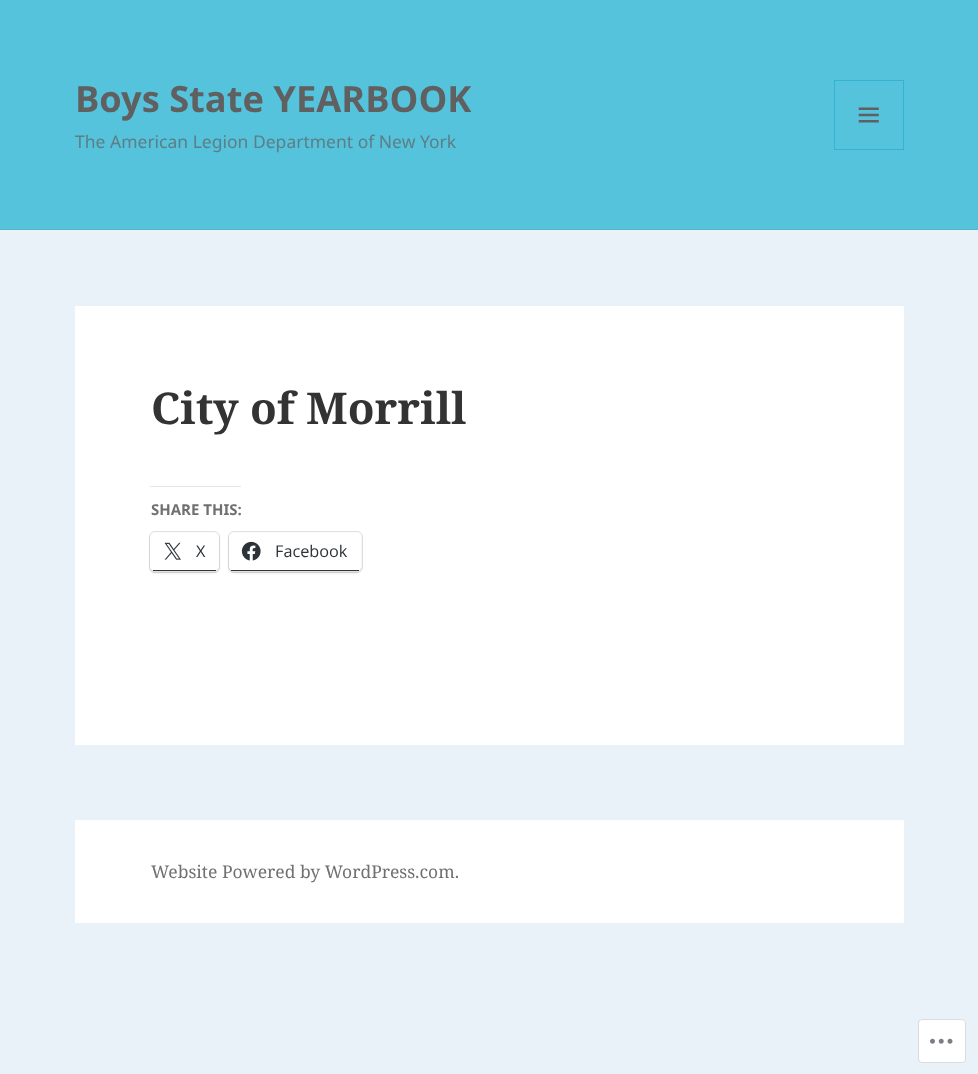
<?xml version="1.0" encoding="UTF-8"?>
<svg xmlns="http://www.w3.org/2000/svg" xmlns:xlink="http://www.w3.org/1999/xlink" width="978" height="1074">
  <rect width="100%" height="100%" fill="#e9f2f9" />
  <rect width="978" height="229" fill="#55c3dc" />
  <rect y="229" width="978" height="1" fill="#52b5cb" />
  <rect x="834.5" y="80.5" width="69" height="69" fill="none" stroke="#33b3d0" />
  <image x="858" y="107" width="21" height="16" xlink:href="image1.png" />
  <rect x="75" y="306" width="829" height="439" fill="#ffffff" />
  <rect x="150" y="486" width="91" height="1" fill="#e7e7e8" />
  <rect x="149.5" y="531.5" width="70" height="41" rx="5.5" fill="none" stroke="#e0e0e0" />
  <rect x="150" y="534" width="69" height="39" rx="5" fill="#000000" fill-opacity="0.12" filter="blur(1px)" />
  <rect x="150" y="533" width="69" height="38" rx="5" fill="#ffffff" />
  <rect x="153" y="570" width="63" height="1" fill="#333333" />
  <image x="164" y="542" width="17" height="18" xlink:href="image2.png" />
  <rect x="228.5" y="531.5" width="134" height="41" rx="5.5" fill="none" stroke="#e0e0e0" />
  <rect x="229" y="534" width="132" height="39" rx="5" fill="#000000" fill-opacity="0.12" filter="blur(1px)" />
  <rect x="229" y="533" width="132" height="38" rx="5" fill="#ffffff" />
  <rect x="231" y="570" width="128" height="1" fill="#333333" />
  <image x="241" y="541" width="20" height="20" xlink:href="image3.png" />
  <rect x="75" y="820" width="829" height="103" fill="#ffffff" />
  <rect x="918.5" y="1019.5" width="47" height="43" rx="3.5" fill="#ffffff" stroke="#dcdcdf" />
  <image x="930" y="1038" width="23" height="6" xlink:href="image4.png" />
  <text x="75" y="112" style="font-family: Noto Sans; font-size: 36.25px; font-weight: bold; fill: #606060">Boys State YEARBOOK</text>
  <text x="75" y="148" style="font-family: Noto Sans; font-size: 17.5px; fill: #5d7e85">The American Legion Department of New York</text>
  <text x="151" y="424" style="font-family: Noto Serif; font-size: 43.75px; font-weight: bold; fill: #333333">City of Morrill</text>
  <text x="151" y="515" style="font-family: Noto Sans; font-size: 15px; font-weight: bold; fill: #707070">SHARE THIS:</text>
  <text x="196" y="557" style="font-family: Open Sans; font-size: 16.25px; fill: #2c3338">X</text>
  <text x="275" y="557" style="font-family: Open Sans; font-size: 16.25px; fill: #2c3338">Facebook</text>
  <text x="151" y="878" style="font-family: Noto Serif; font-size: 17.5px; fill: #707070">Website Powered by WordPress.com.</text>
</svg>
